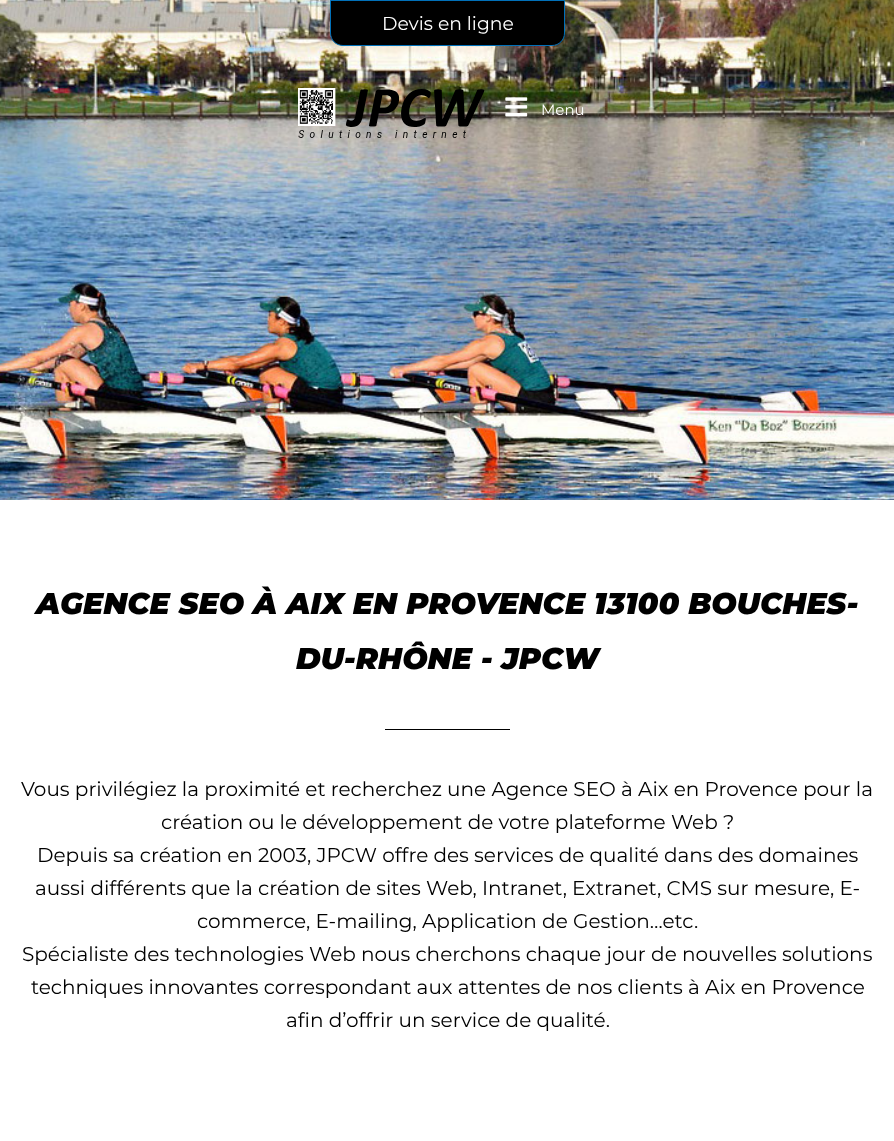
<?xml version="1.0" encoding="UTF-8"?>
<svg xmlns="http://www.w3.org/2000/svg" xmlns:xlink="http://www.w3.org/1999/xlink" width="894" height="1141">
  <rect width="100%" height="100%" fill="#ffffff" />
  <image x="0" y="0" width="894" height="500" xlink:href="image3.png" />
  <path d="M 330.5 0.5 h 234 v 32.5 c 0 7 -5.5 12.5 -12.5 12.5 h -209 c -7 0 -12.5 -5.5 -12.5 -12.5 z" fill="#000000" stroke="#0170b9" />
  <image x="298" y="88" width="187" height="50" xlink:href="image1.png" />
  <image x="505" y="97" width="23" height="20" xlink:href="image2.png" />
  <rect x="385" y="729" width="125" height="1" fill="#000000" />
  <text x="382" y="30" style="font-family: Montserrat; font-size: 18.75px; fill: #ffffff">Devis en ligne</text>
  <text x="541" y="115" style="font-family: Montserrat; font-size: 15px; fill: #ffffff">Menu</text>
  <text x="36" y="614" style="font-family: Montserrat; font-size: 30px; font-weight: 900; font-style: italic; fill: #000000">AGENCE SEO À AIX EN PROVENCE 13100 BOUCHES-</text>
  <text x="296" y="669" style="font-family: Montserrat; font-size: 30px; font-weight: 900; font-style: italic; fill: #000000">DU-RHÔNE - JPCW</text>
  <text x="21" y="796" style="font-family: Montserrat; font-size: 20px; fill: #000000">Vous privilégiez la proximité et recherchez une Agence SEO à Aix en Provence pour la</text>
  <text x="161" y="829" style="font-family: Montserrat; font-size: 20px; fill: #000000">création ou le développement de votre plateforme Web ?</text>
  <text x="37" y="862" style="font-family: Montserrat; font-size: 20px; fill: #000000">Depuis sa création en 2003, JPCW offre des services de qualité dans des domaines</text>
  <text x="35" y="895" style="font-family: Montserrat; font-size: 20px; fill: #000000">aussi différents que la création de sites Web, Intranet, Extranet, CMS sur mesure, E-</text>
  <text x="197" y="928" style="font-family: Montserrat; font-size: 20px; fill: #000000">commerce, E-mailing, Application de Gestion…etc.</text>
  <text x="22" y="961" style="font-family: Montserrat; font-size: 20px; fill: #000000">Spécialiste des technologies Web nous cherchons chaque jour de nouvelles solutions</text>
  <text x="31" y="994" style="font-family: Montserrat; font-size: 20px; fill: #000000">techniques innovantes correspondant aux attentes de nos clients à Aix en Provence</text>
  <text x="286" y="1027" style="font-family: Montserrat; font-size: 20px; fill: #000000">afin d’offrir un service de qualité.</text>
</svg>
